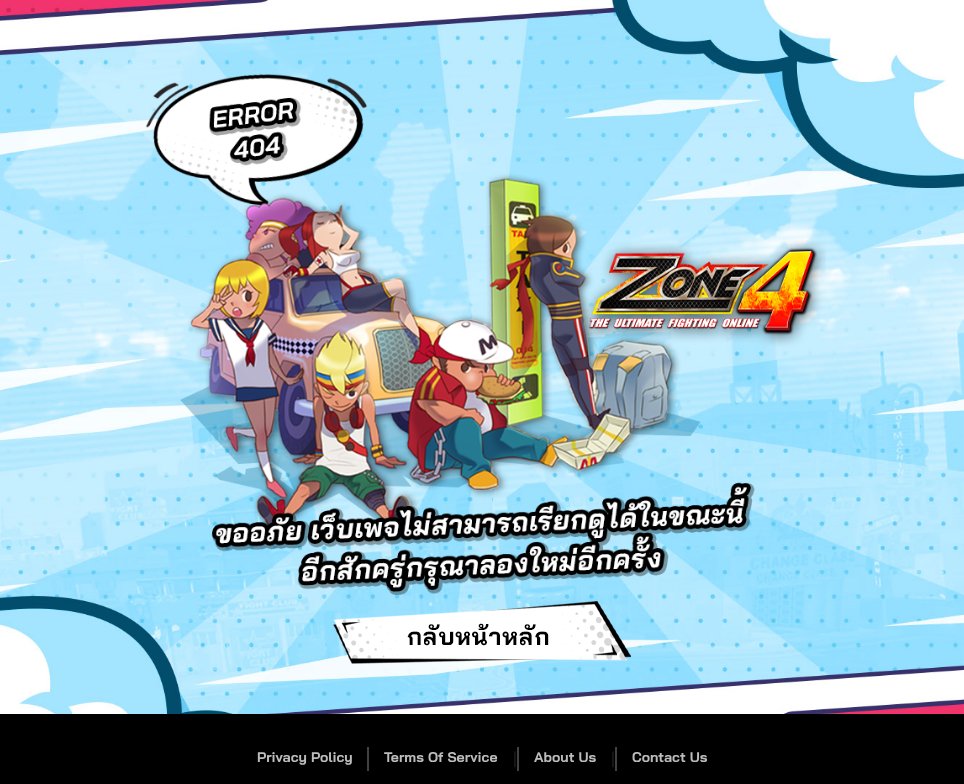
<?xml version="1.0" encoding="UTF-8"?>
<svg xmlns="http://www.w3.org/2000/svg" xmlns:xlink="http://www.w3.org/1999/xlink" width="964" height="784">
  <rect width="100%" height="100%" fill="#ffffff" />
  <image x="0" y="0" width="964" height="714" xlink:href="image1.png" />
  <image x="145" y="74" width="681" height="521" xlink:href="image2.png" />
  <image x="333" y="601" width="298" height="63" xlink:href="image3.png" />
  <rect y="714" width="964" height="70" fill="#000000" />
  <rect x="367" y="747" width="2" height="24" fill="#414141" />
  <rect x="517" y="747" width="2" height="24" fill="#414141" />
  <rect x="615" y="747" width="2" height="24" fill="#414141" />
  <text x="257" y="762" style="font-family: Bai Jamjuree; font-size: 14px; font-weight: bold; fill: #bcbcbc">Privacy Policy</text>
  <text x="384" y="762" style="font-family: Bai Jamjuree; font-size: 14px; font-weight: bold; fill: #bcbcbc">Terms Of Service</text>
  <text x="513" y="765" style="font-family: Bai Jamjuree; font-size: 16px; fill: #212529">|</text>
  <text x="534" y="762" style="font-family: Bai Jamjuree; font-size: 14px; font-weight: bold; fill: #bcbcbc">About Us</text>
  <text x="611" y="765" style="font-family: Bai Jamjuree; font-size: 16px; fill: #212529">|</text>
  <text x="632" y="762" style="font-family: Bai Jamjuree; font-size: 14px; font-weight: bold; fill: #bcbcbc">Contact Us</text>
</svg>
